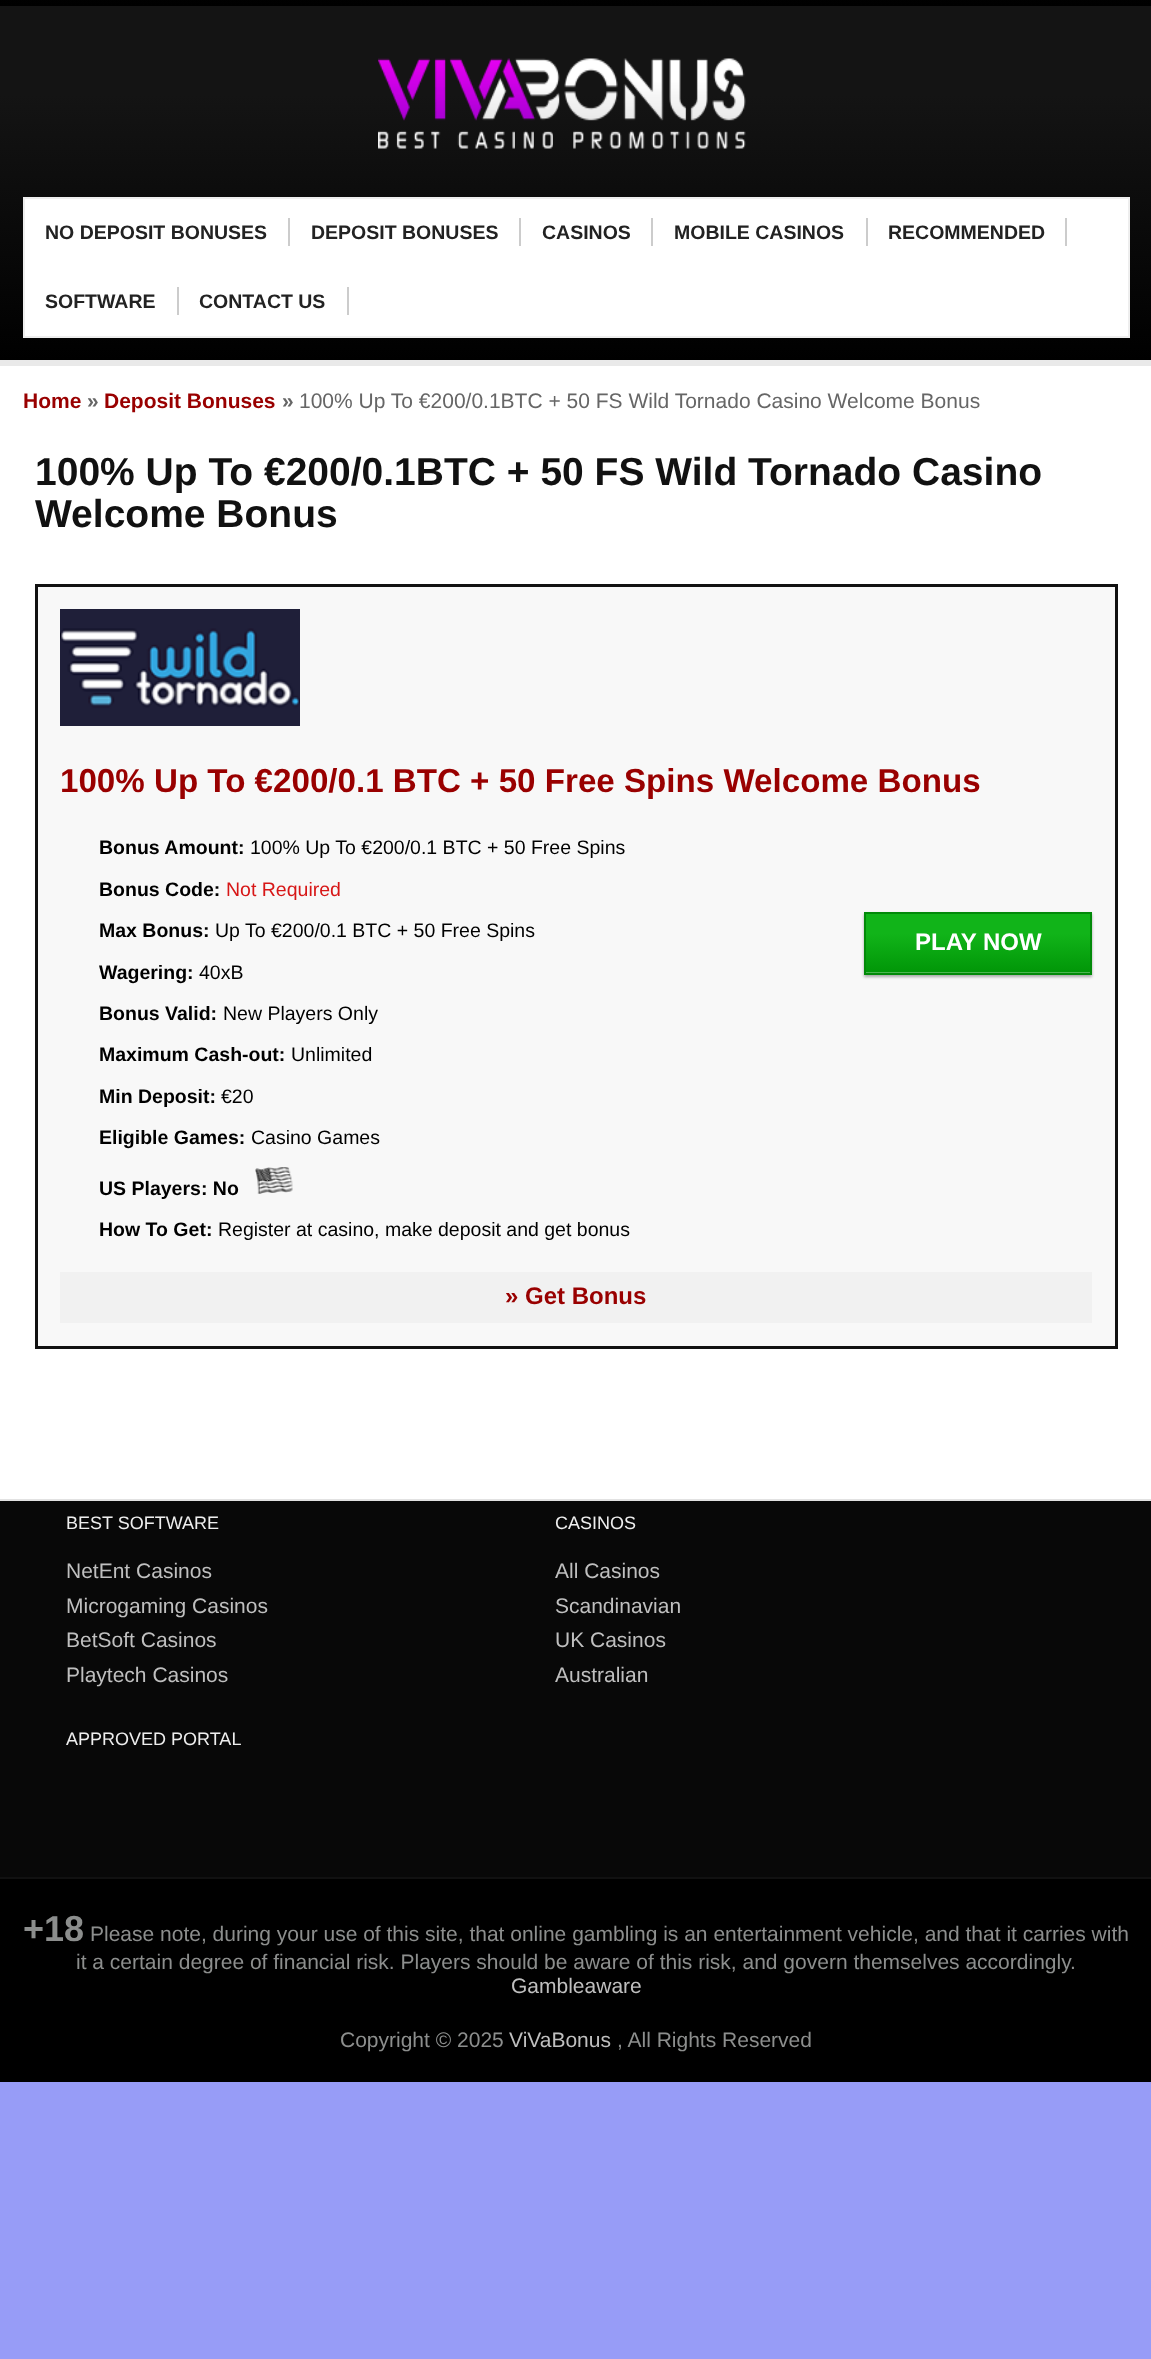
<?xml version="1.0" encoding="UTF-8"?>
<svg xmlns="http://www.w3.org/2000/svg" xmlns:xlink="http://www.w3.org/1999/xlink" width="1151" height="2359">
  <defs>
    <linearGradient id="g1" gradientUnits="userSpaceOnUse" x1="576" y1="-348" x2="576" y2="6"><stop offset="0.25" stop-color="#141414" /><stop offset="1" stop-color="#000000" /></linearGradient>
    <linearGradient id="g2" gradientUnits="userSpaceOnUse" x1="576" y1="6" x2="576" y2="360"><stop offset="0.25" stop-color="#141414" /><stop offset="1" stop-color="#000000" /></linearGradient>
    <linearGradient id="g3" gradientUnits="userSpaceOnUse" x1="978" y1="914" x2="978" y2="974"><stop offset="0.33" stop-color="#11b419" /><stop offset="1" stop-color="#009507" /></linearGradient>
  </defs>
  <rect width="100%" height="100%" fill="#979cf7" />
  <rect width="1151" height="6" fill="url(#g1)" />
  <rect y="6" width="1151" height="354" fill="url(#g2)" />
  <rect y="360" width="1151" height="6" fill="#e9e9e9" />
  <image x="378" y="58" width="368" height="91" xlink:href="image1.png" />
  <rect x="24" y="198" width="1105" height="139" fill="#ffffff" stroke="#eeeeee" stroke-width="2" />
  <rect x="288" y="218" width="2" height="28" fill="#cccccc" />
  <rect x="519" y="218" width="2" height="28" fill="#cccccc" />
  <rect x="651" y="218" width="2" height="28" fill="#cccccc" />
  <rect x="866" y="218" width="2" height="28" fill="#cccccc" />
  <rect x="1065" y="218" width="2" height="28" fill="#cccccc" />
  <rect x="177" y="287" width="2" height="28" fill="#cccccc" />
  <rect x="347" y="287" width="2" height="28" fill="#cccccc" />
  <rect y="366" width="1151" height="1133" fill="#ffffff" />
  <rect x="36.5" y="585.5" width="1080" height="762" fill="#f8f8f8" stroke="#111111" stroke-width="3" />
  <image x="60" y="609" width="240" height="117" xlink:href="image2.png" />
  <image x="255" y="1167" width="38" height="27" xlink:href="image3.png" />
  <rect x="864" y="914" width="228" height="63" fill="#000000" fill-opacity="0.33" filter="blur(1.5px)" />
  <rect x="866" y="914" width="224" height="58" fill="url(#g3)" />
  <rect x="866" y="972" width="225" height="1" fill="#4db552" />
  <rect x="865" y="913" width="226" height="61" fill="none" stroke="#028a09" stroke-width="2" />
  <rect x="60" y="1272" width="1032" height="51" fill="#f1f1f1" />
  <rect y="1501" width="1151" height="376" fill="#080808" />
  <rect y="1499" width="1151" height="2" fill="#e2e2e2" />
  <rect y="1879" width="1151" height="203" fill="#000000" />
  <rect y="1877" width="1151" height="2" fill="#111111" />
  <text x="45" y="239" style="font-family: Liberation Sans; font-size: 19.5px; font-weight: bold; fill: #222222">NO DEPOSIT BONUSES</text>
  <text x="311" y="239" style="font-family: Liberation Sans; font-size: 19.5px; font-weight: bold; fill: #222222">DEPOSIT BONUSES</text>
  <text x="542" y="239" style="font-family: Liberation Sans; font-size: 19.5px; font-weight: bold; fill: #222222">CASINOS</text>
  <text x="674" y="239" style="font-family: Liberation Sans; font-size: 19.5px; font-weight: bold; fill: #222222">MOBILE CASINOS</text>
  <text x="888" y="239" style="font-family: Liberation Sans; font-size: 19.5px; font-weight: bold; fill: #222222">RECOMMENDED</text>
  <text x="45" y="308" style="font-family: Liberation Sans; font-size: 19.5px; font-weight: bold; fill: #222222">SOFTWARE</text>
  <text x="199" y="308" style="font-family: Liberation Sans; font-size: 19.5px; font-weight: bold; fill: #222222">CONTACT US</text>
  <text x="23" y="408" style="font-family: Liberation Sans; font-size: 21px; font-weight: bold; fill: #990000">Home</text>
  <text x="87" y="408" style="font-family: Liberation Sans; font-size: 21px; font-weight: bold; fill: #666666">»</text>
  <text x="104" y="408" style="font-family: Liberation Sans; font-size: 21px; font-weight: bold; fill: #990000">Deposit Bonuses</text>
  <text x="282" y="408" style="font-family: Liberation Sans; font-size: 21px; font-weight: bold; fill: #666666">»</text>
  <text x="299" y="408" style="font-family: Liberation Sans; font-size: 21px; fill: #666666">100% Up To €200/0.1BTC + 50 FS Wild Tornado Casino Welcome Bonus</text>
  <text x="35" y="485" style="font-family: Liberation Sans; font-size: 39px; font-weight: bold; fill: #111111">100% Up To €200/0.1BTC + 50 FS Wild Tornado Casino</text>
  <text x="35" y="527" style="font-family: Liberation Sans; font-size: 39px; font-weight: bold; fill: #111111">Welcome Bonus</text>
  <text x="60" y="792" style="font-family: Liberation Sans; font-size: 33.15px; font-weight: bold; fill: #990000">100% Up To €200/0.1 BTC + 50 Free Spins Welcome Bonus</text>
  <text x="99" y="854" style="font-family: Liberation Sans; font-size: 19.5px; font-weight: bold; fill: #000000">Bonus Amount:</text>
  <text x="250" y="854" style="font-family: Liberation Sans; font-size: 19.5px; fill: #000000">100% Up To €200/0.1 BTC + 50 Free Spins</text>
  <text x="99" y="896" style="font-family: Liberation Sans; font-size: 19.5px; font-weight: bold; fill: #000000">Bonus Code:</text>
  <text x="226" y="896" style="font-family: Liberation Sans; font-size: 19.5px; fill: #d71717">Not Required</text>
  <text x="99" y="937" style="font-family: Liberation Sans; font-size: 19.5px; font-weight: bold; fill: #000000">Max Bonus:</text>
  <text x="215" y="937" style="font-family: Liberation Sans; font-size: 19.5px; fill: #000000">Up To €200/0.1 BTC + 50 Free Spins</text>
  <text x="99" y="979" style="font-family: Liberation Sans; font-size: 19.5px; font-weight: bold; fill: #000000">Wagering:</text>
  <text x="199" y="979" style="font-family: Liberation Sans; font-size: 19.5px; fill: #000000">40xB</text>
  <text x="99" y="1020" style="font-family: Liberation Sans; font-size: 19.5px; font-weight: bold; fill: #000000">Bonus Valid:</text>
  <text x="223" y="1020" style="font-family: Liberation Sans; font-size: 19.5px; fill: #000000">New Players Only</text>
  <text x="99" y="1061" style="font-family: Liberation Sans; font-size: 19.5px; font-weight: bold; fill: #000000">Maximum Cash-out:</text>
  <text x="291" y="1061" style="font-family: Liberation Sans; font-size: 19.5px; fill: #000000">Unlimited</text>
  <text x="99" y="1103" style="font-family: Liberation Sans; font-size: 19.5px; font-weight: bold; fill: #000000">Min Deposit:</text>
  <text x="221" y="1103" style="font-family: Liberation Sans; font-size: 19.5px; fill: #000000">€20</text>
  <text x="99" y="1144" style="font-family: Liberation Sans; font-size: 19.5px; font-weight: bold; fill: #000000">Eligible Games:</text>
  <text x="251" y="1144" style="font-family: Liberation Sans; font-size: 19.5px; fill: #000000">Casino Games</text>
  <text x="99" y="1195" style="font-family: Liberation Sans; font-size: 19.5px; font-weight: bold; fill: #000000">US Players: No</text>
  <text x="99" y="1236" style="font-family: Liberation Sans; font-size: 19.5px; font-weight: bold; fill: #000000">How To Get:</text>
  <text x="218" y="1236" style="font-family: Liberation Sans; font-size: 19.5px; fill: #000000">Register at casino, make deposit and get bonus</text>
  <text x="915" y="950" style="font-family: Liberation Sans; font-size: 24px; font-weight: bold; fill: #ffffff">PLAY NOW</text>
  <text x="505" y="1304" style="font-family: Liberation Sans; font-size: 24px; font-weight: bold; fill: #990000">» Get Bonus</text>
  <text x="66" y="1529" style="font-family: Liberation Sans; font-size: 18px; fill: #eeeeee">BEST SOFTWARE</text>
  <text x="66" y="1578" style="font-family: Liberation Sans; font-size: 21px; fill: #bfbfbf">NetEnt Casinos</text>
  <text x="66" y="1613" style="font-family: Liberation Sans; font-size: 21px; fill: #bfbfbf">Microgaming Casinos</text>
  <text x="66" y="1647" style="font-family: Liberation Sans; font-size: 21px; fill: #bfbfbf">BetSoft Casinos</text>
  <text x="66" y="1682" style="font-family: Liberation Sans; font-size: 21px; fill: #bfbfbf">Playtech Casinos</text>
  <text x="555" y="1529" style="font-family: Liberation Sans; font-size: 18px; fill: #eeeeee">CASINOS</text>
  <text x="555" y="1578" style="font-family: Liberation Sans; font-size: 21px; fill: #bfbfbf">All Casinos</text>
  <text x="555" y="1613" style="font-family: Liberation Sans; font-size: 21px; fill: #bfbfbf">Scandinavian</text>
  <text x="555" y="1647" style="font-family: Liberation Sans; font-size: 21px; fill: #bfbfbf">UK Casinos</text>
  <text x="555" y="1682" style="font-family: Liberation Sans; font-size: 21px; fill: #bfbfbf">Australian</text>
  <text x="66" y="1745" style="font-family: Liberation Sans; font-size: 18px; fill: #eeeeee">APPROVED PORTAL</text>
  <text x="23" y="1941" style="font-family: Liberation Sans; font-size: 36px; font-weight: bold; fill: #8c8e8d">+18</text>
  <text x="90" y="1941" style="font-family: Liberation Sans; font-size: 21px; fill: #8c8e8d">Please note, during your use of this site, that online gambling is an entertainment vehicle, and that it carries with</text>
  <text x="76" y="1969" style="font-family: Liberation Sans; font-size: 21px; fill: #8c8e8d">it a certain degree of financial risk. Players should be aware of this risk, and govern themselves accordingly.</text>
  <text x="511" y="1993" style="font-family: Liberation Sans; font-size: 21px; fill: #bfbfbf">Gambleaware</text>
  <text x="340" y="2047" style="font-family: Liberation Sans; font-size: 21px; fill: #8c8e8d">Copyright © 2025</text>
  <text x="509" y="2047" style="font-family: Liberation Sans; font-size: 21px; fill: #bfbfbf">ViVaBonus</text>
  <text x="617" y="2047" style="font-family: Liberation Sans; font-size: 21px; fill: #8c8e8d">, All Rights Reserved</text>
</svg>
